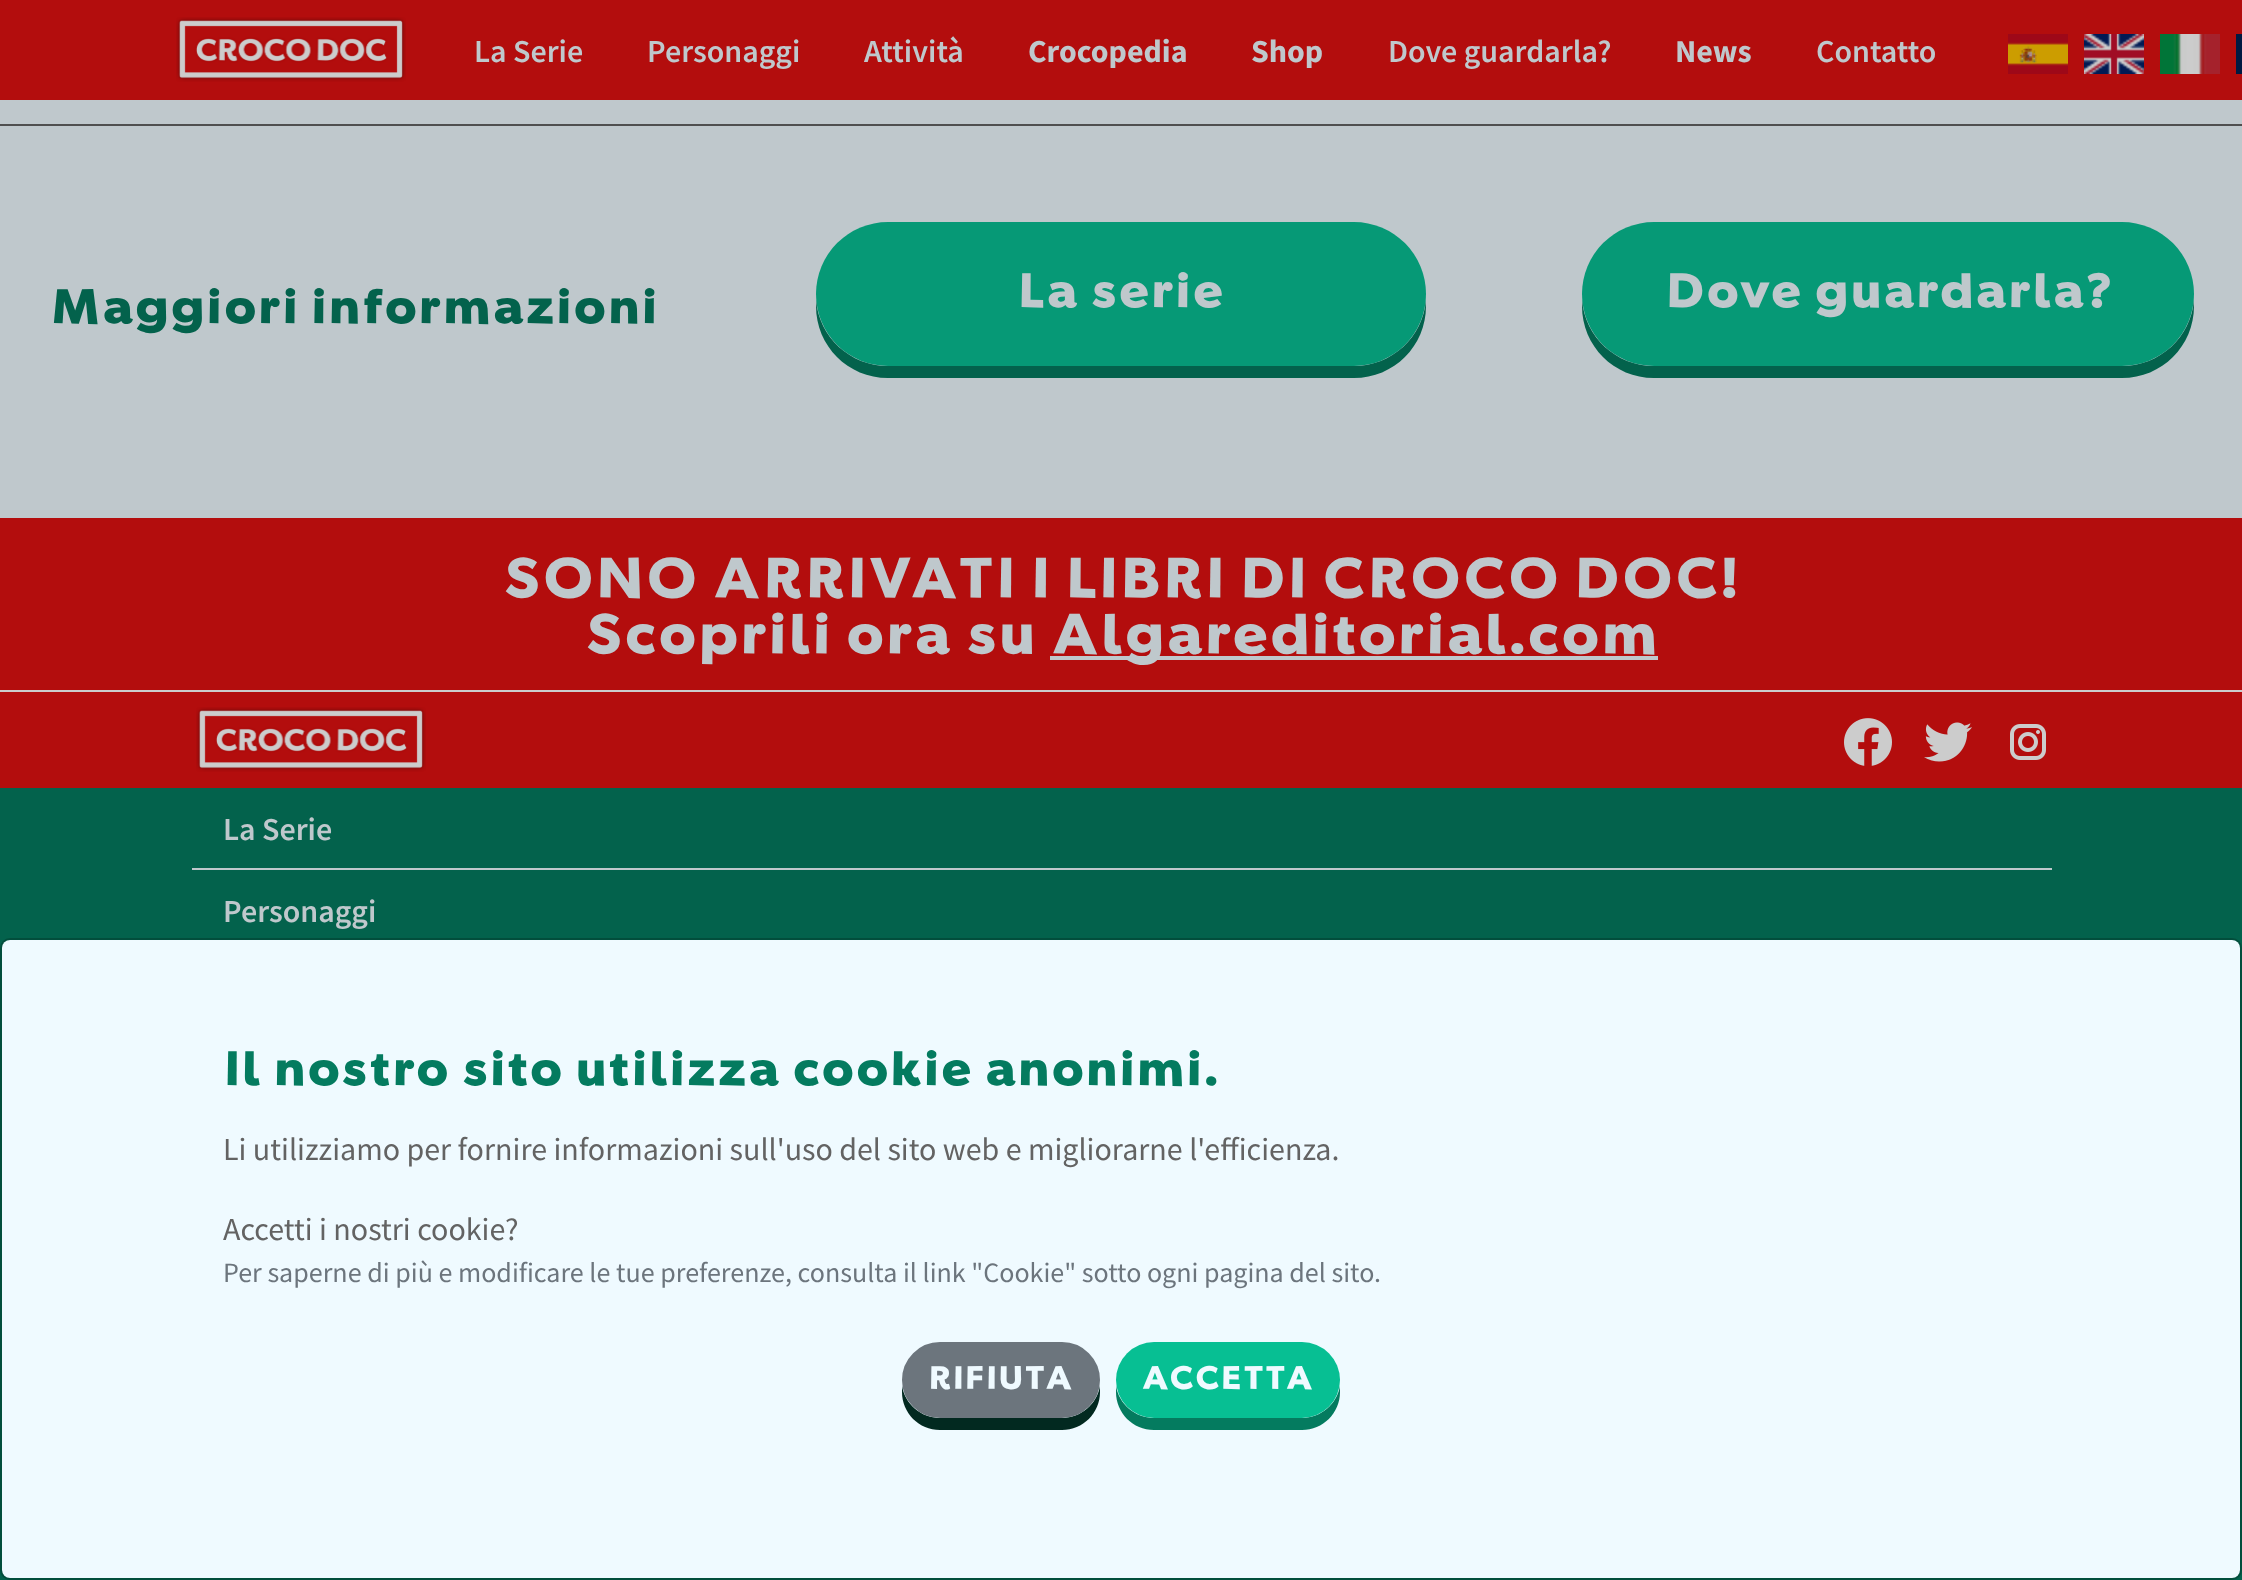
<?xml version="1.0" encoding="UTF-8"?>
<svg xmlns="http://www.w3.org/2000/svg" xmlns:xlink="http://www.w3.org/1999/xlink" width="2242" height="1580">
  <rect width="100%" height="100%" fill="#bfc8cc" />
  <rect width="2242" height="100" fill="#b30d0d" />
  <image x="176" y="17" width="230" height="65" xlink:href="image1.png" />
  <image x="2008" y="34" width="60" height="40" xlink:href="image2.png" />
  <image x="2084" y="34" width="60" height="40" xlink:href="image3.png" />
  <image x="2160" y="34" width="60" height="40" xlink:href="image4.png" />
  <rect x="2236" y="34" width="6" height="40" fill="#001a42" />
  <rect y="124" width="2242" height="2" fill="#4f4f4f" />
  <path d="M 816 300 v 6 c 0 40 32 72 72 72 h 466 c 40 0 72 -32 72 -72 v -6 c -3 37 -34 66 -72 66 h -466 c -38 0 -69 -29 -72 -66 z" fill="#03624c" />
  <rect x="816" y="222" width="610" height="144" rx="72" fill="#069976" />
  <path d="M 1582 300 v 6 c 0 40 32 72 72 72 h 468 c 40 0 72 -32 72 -72 v -6 c -3 37 -34 66 -72 66 h -468 c -38 0 -69 -29 -72 -66 z" fill="#03624c" />
  <rect x="1582" y="222" width="612" height="144" rx="72" fill="#069976" />
  <rect y="788" width="2242" height="792" fill="#03624c" />
  <rect y="690" width="2242" height="2" fill="#cccccc" />
  <rect y="518" width="2242" height="172" fill="#b30d0d" />
  <rect x="1050" y="656" width="608" height="4" fill="#bfc8cc" />
  <rect y="692" width="2242" height="96" fill="#b30d0d" />
  <image x="196" y="707" width="230" height="65" xlink:href="image5.png" />
  <image x="1844" y="718" width="48" height="48" xlink:href="image6.png" />
  <image x="1924" y="722" width="48" height="40" xlink:href="image7.png" />
  <image x="2010" y="724" width="36" height="36" xlink:href="image8.png" />
  <rect x="192" y="868" width="1860" height="2" fill="#bfc8cc" />
  <rect x="2" y="940" width="2238" height="638" rx="8" fill="#effaff" />
  <rect x="1" y="939" width="2240" height="640" rx="9" fill="none" stroke="#000000" stroke-opacity="0.2" stroke-width="2" />
  <path d="M 902 1386 v 6 c 0 21 17 38 38 38 h 122 c 21 0 38 -17 38 -38 v -6 c -3 18 -19 32 -38 32 h -122 c -19 0 -35 -14 -38 -32 z" fill="#022920" />
  <rect x="903" y="1343" width="196" height="74" rx="37" fill="#6c757d" stroke="#6c757d" stroke-width="2" />
  <path d="M 1116 1386 v 6 c 0 21 17 38 38 38 h 148 c 21 0 38 -17 38 -38 v -6 c -3 18 -19 32 -38 32 h -148 c -19 0 -35 -14 -38 -32 z" fill="#047b5f" />
  <rect x="1116" y="1342" width="224" height="76" rx="38" fill="#07bf93" />
  <text x="474" y="62" style="font-family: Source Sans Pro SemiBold; font-size: 32px; font-weight: 600; fill: #bfc8cc">La Serie</text>
  <text x="647" y="62" style="font-family: Source Sans Pro SemiBold; font-size: 32px; font-weight: 600; fill: #bfc8cc">Personaggi</text>
  <text x="864" y="62" style="font-family: Source Sans Pro SemiBold; font-size: 32px; font-weight: 600; fill: #bfc8cc">Attività</text>
  <text x="1028" y="62" style="font-family: Source Sans Pro; font-size: 32px; font-weight: bold; fill: #bfc8cc">Crocopedia</text>
  <text x="1251" y="62" style="font-family: Source Sans Pro; font-size: 32px; font-weight: bold; fill: #bfc8cc">Shop</text>
  <text x="1388" y="62" style="font-family: Source Sans Pro SemiBold; font-size: 32px; font-weight: 600; fill: #bfc8cc">Dove guardarla?</text>
  <text x="1675" y="62" style="font-family: Source Sans Pro; font-size: 32px; font-weight: bold; fill: #bfc8cc">News</text>
  <text x="1816" y="62" style="font-family: Source Sans Pro SemiBold; font-size: 32px; font-weight: 600; fill: #bfc8cc">Contatto</text>
  <text x="50" y="322" style="font-family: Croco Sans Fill; font-size: 48px; fill: #03624c">Maggiori informazioni</text>
  <text x="1017" y="306" style="font-family: Croco Sans Fill; font-size: 48px; fill: #bfc8cc">La serie</text>
  <text x="1665" y="306" style="font-family: Croco Sans Fill; font-size: 48px; fill: #bfc8cc">Dove guardarla?</text>
  <text x="502" y="596" style="font-family: Croco Sans Fill; font-size: 56px; fill: #bfc8cc">SONO ARRIVATI I LIBRI DI CROCO DOC!</text>
  <text x="584" y="652" style="font-family: Croco Sans Fill; font-size: 56px; fill: #bfc8cc">Scoprili ora su</text>
  <text x="1050" y="652" style="font-family: Croco Sans Fill; font-size: 56px; fill: #bfc8cc">Algareditorial.com</text>
  <text x="223" y="840" style="font-family: Source Sans Pro SemiBold; font-size: 32px; font-weight: 600; fill: #bfc8cc">La Serie</text>
  <text x="223" y="922" style="font-family: Source Sans Pro SemiBold; font-size: 32px; font-weight: 600; fill: #bfc8cc">Personaggi</text>
  <text x="223" y="1084" style="font-family: Croco Sans Fill; font-size: 48px; fill: #047b5f">Il nostro sito utilizza cookie anonimi.</text>
  <text x="223" y="1160" style="font-family: Source Sans Pro; font-size: 32px; fill: #636363">Li utilizziamo per fornire informazioni sull'uso del sito web e migliorarne l'efficienza.</text>
  <text x="223" y="1240" style="font-family: Source Sans Pro; font-size: 32px; fill: #636363">Accetti i nostri cookie?</text>
  <text x="223" y="1282" style="font-family: Source Sans Pro; font-size: 28px; fill: #6c757d">Per saperne di più e modificare le tue preferenze, consulta il link "Cookie" sotto ogni pagina del sito.</text>
  <text x="928" y="1388" style="font-family: Croco Sans Fill; font-size: 32px; fill: #effaff">RIFIUTA</text>
  <text x="1141" y="1388" style="font-family: Croco Sans Fill; font-size: 32px; fill: #effaff">ACCETTA</text>
</svg>
